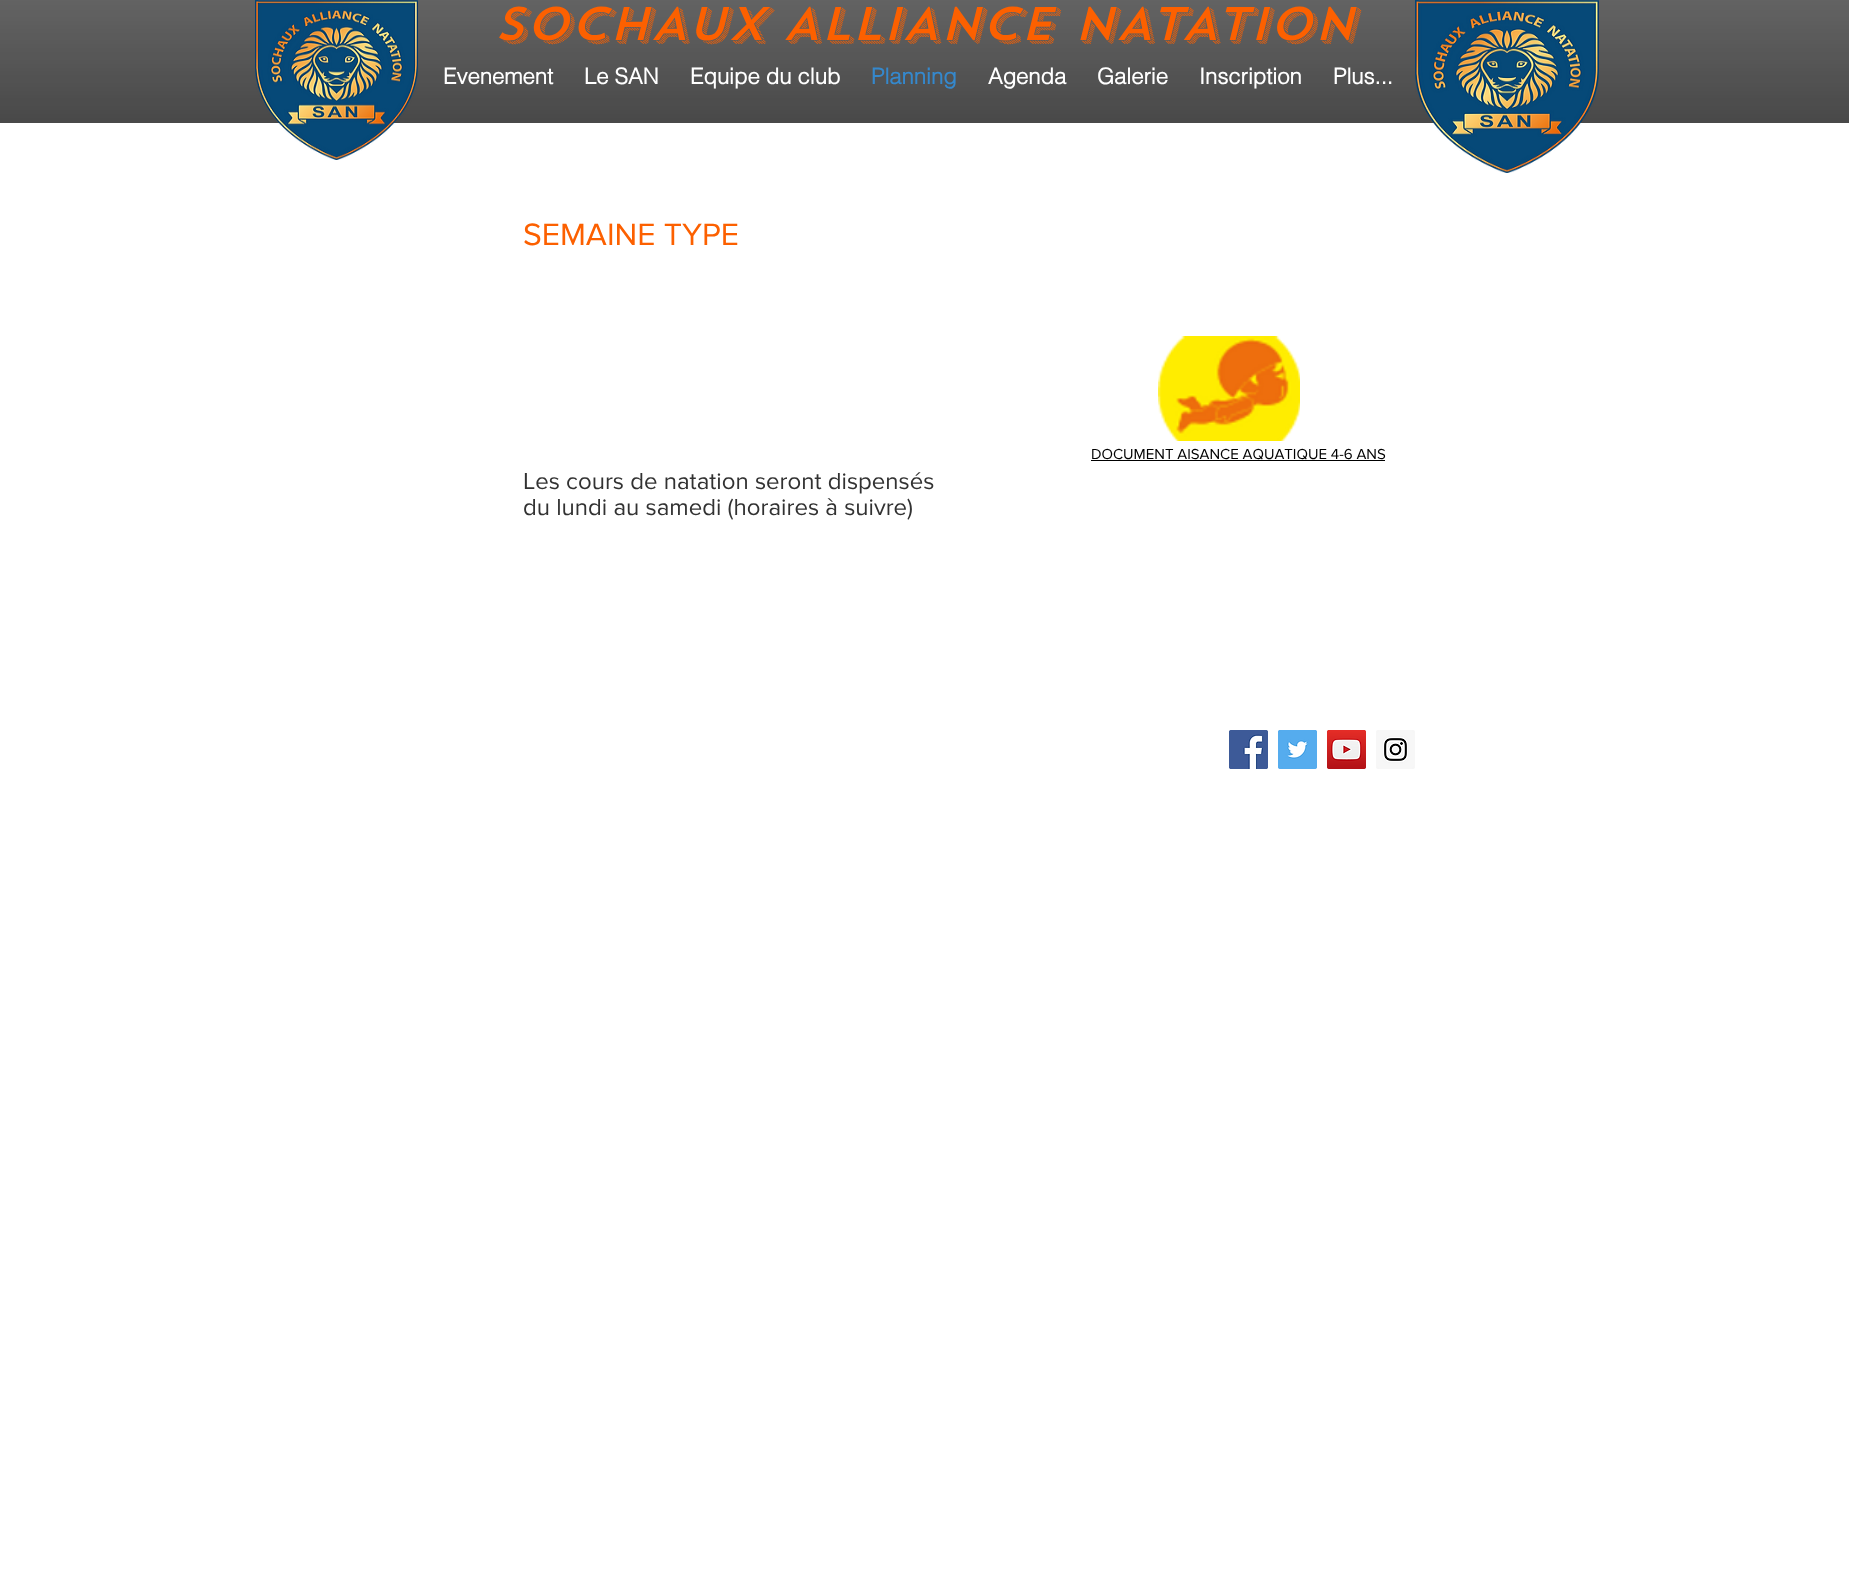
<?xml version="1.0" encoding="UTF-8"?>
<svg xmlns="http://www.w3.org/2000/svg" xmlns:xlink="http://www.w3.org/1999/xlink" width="1849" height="1593">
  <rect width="100%" height="100%" fill="#ffffff" />
  <rect width="1849" height="123" fill="#2d2d2d" />
  <image x="0" y="0" width="1849" height="123" xlink:href="image1.png" />
  <image x="255" y="0" width="163" height="160" xlink:href="image2.png" />
  <image x="1415" y="0" width="184" height="173" xlink:href="image3.png" />
  <image x="1158" y="336" width="142" height="105" xlink:href="image4.png" />
  <rect x="1091" y="460" width="294" height="1" fill="#000000" />
  <image x="1229" y="730" width="39" height="39" xlink:href="image5.png" />
  <image x="1278" y="730" width="39" height="39" xlink:href="image6.png" />
  <image x="1327" y="730" width="39" height="39" xlink:href="image7.png" />
  <image x="1376" y="730" width="39" height="39" xlink:href="image8.png" />
  <text x="494" y="40" style="font-family: 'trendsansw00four'; font-size: 47px; font-weight: 500; font-style: italic; fill: #fc6000">SOCHAUX ALLIANCE NATATION</text>
  <text x="443" y="84" style="font-family: helvetica; font-size: 22px; font-weight: bold; fill: #ffffff">Evenement</text>
  <text x="584" y="84" style="font-family: helvetica; font-size: 22px; font-weight: bold; fill: #ffffff">Le SAN</text>
  <text x="690" y="84" style="font-family: helvetica; font-size: 22px; font-weight: bold; fill: #ffffff">Equipe du club</text>
  <text x="871" y="84" style="font-family: helvetica; font-size: 22px; font-weight: bold; fill: #3588cc">Planning</text>
  <text x="988" y="84" style="font-family: helvetica; font-size: 22px; font-weight: bold; fill: #ffffff">Agenda</text>
  <text x="1097" y="84" style="font-family: helvetica; font-size: 22px; font-weight: bold; fill: #ffffff">Galerie</text>
  <text x="1199" y="84" style="font-family: helvetica; font-size: 22px; font-weight: bold; fill: #ffffff">Inscription</text>
  <text x="1333" y="84" style="font-family: helvetica; font-size: 22px; font-weight: bold; fill: #ffffff">Plus...</text>
  <text x="523" y="245" style="font-family: 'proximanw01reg'; font-size: 32px; fill: #fc6000">SEMAINE TYPE</text>
  <text x="523" y="489" style="font-family: 'proximanw01reg'; font-size: 24px; fill: #323232">Les cours de natation seront dispensés</text>
  <text x="523" y="515" style="font-family: 'proximanw01reg'; font-size: 24px; fill: #323232">du lundi au samedi (horaires à suivre)</text>
  <text x="1091" y="459" style="font-family: 'proximanw01reg'; font-size: 15px; fill: #000000">DOCUMENT AISANCE AQUATIQUE 4-6 ANS</text>
</svg>
